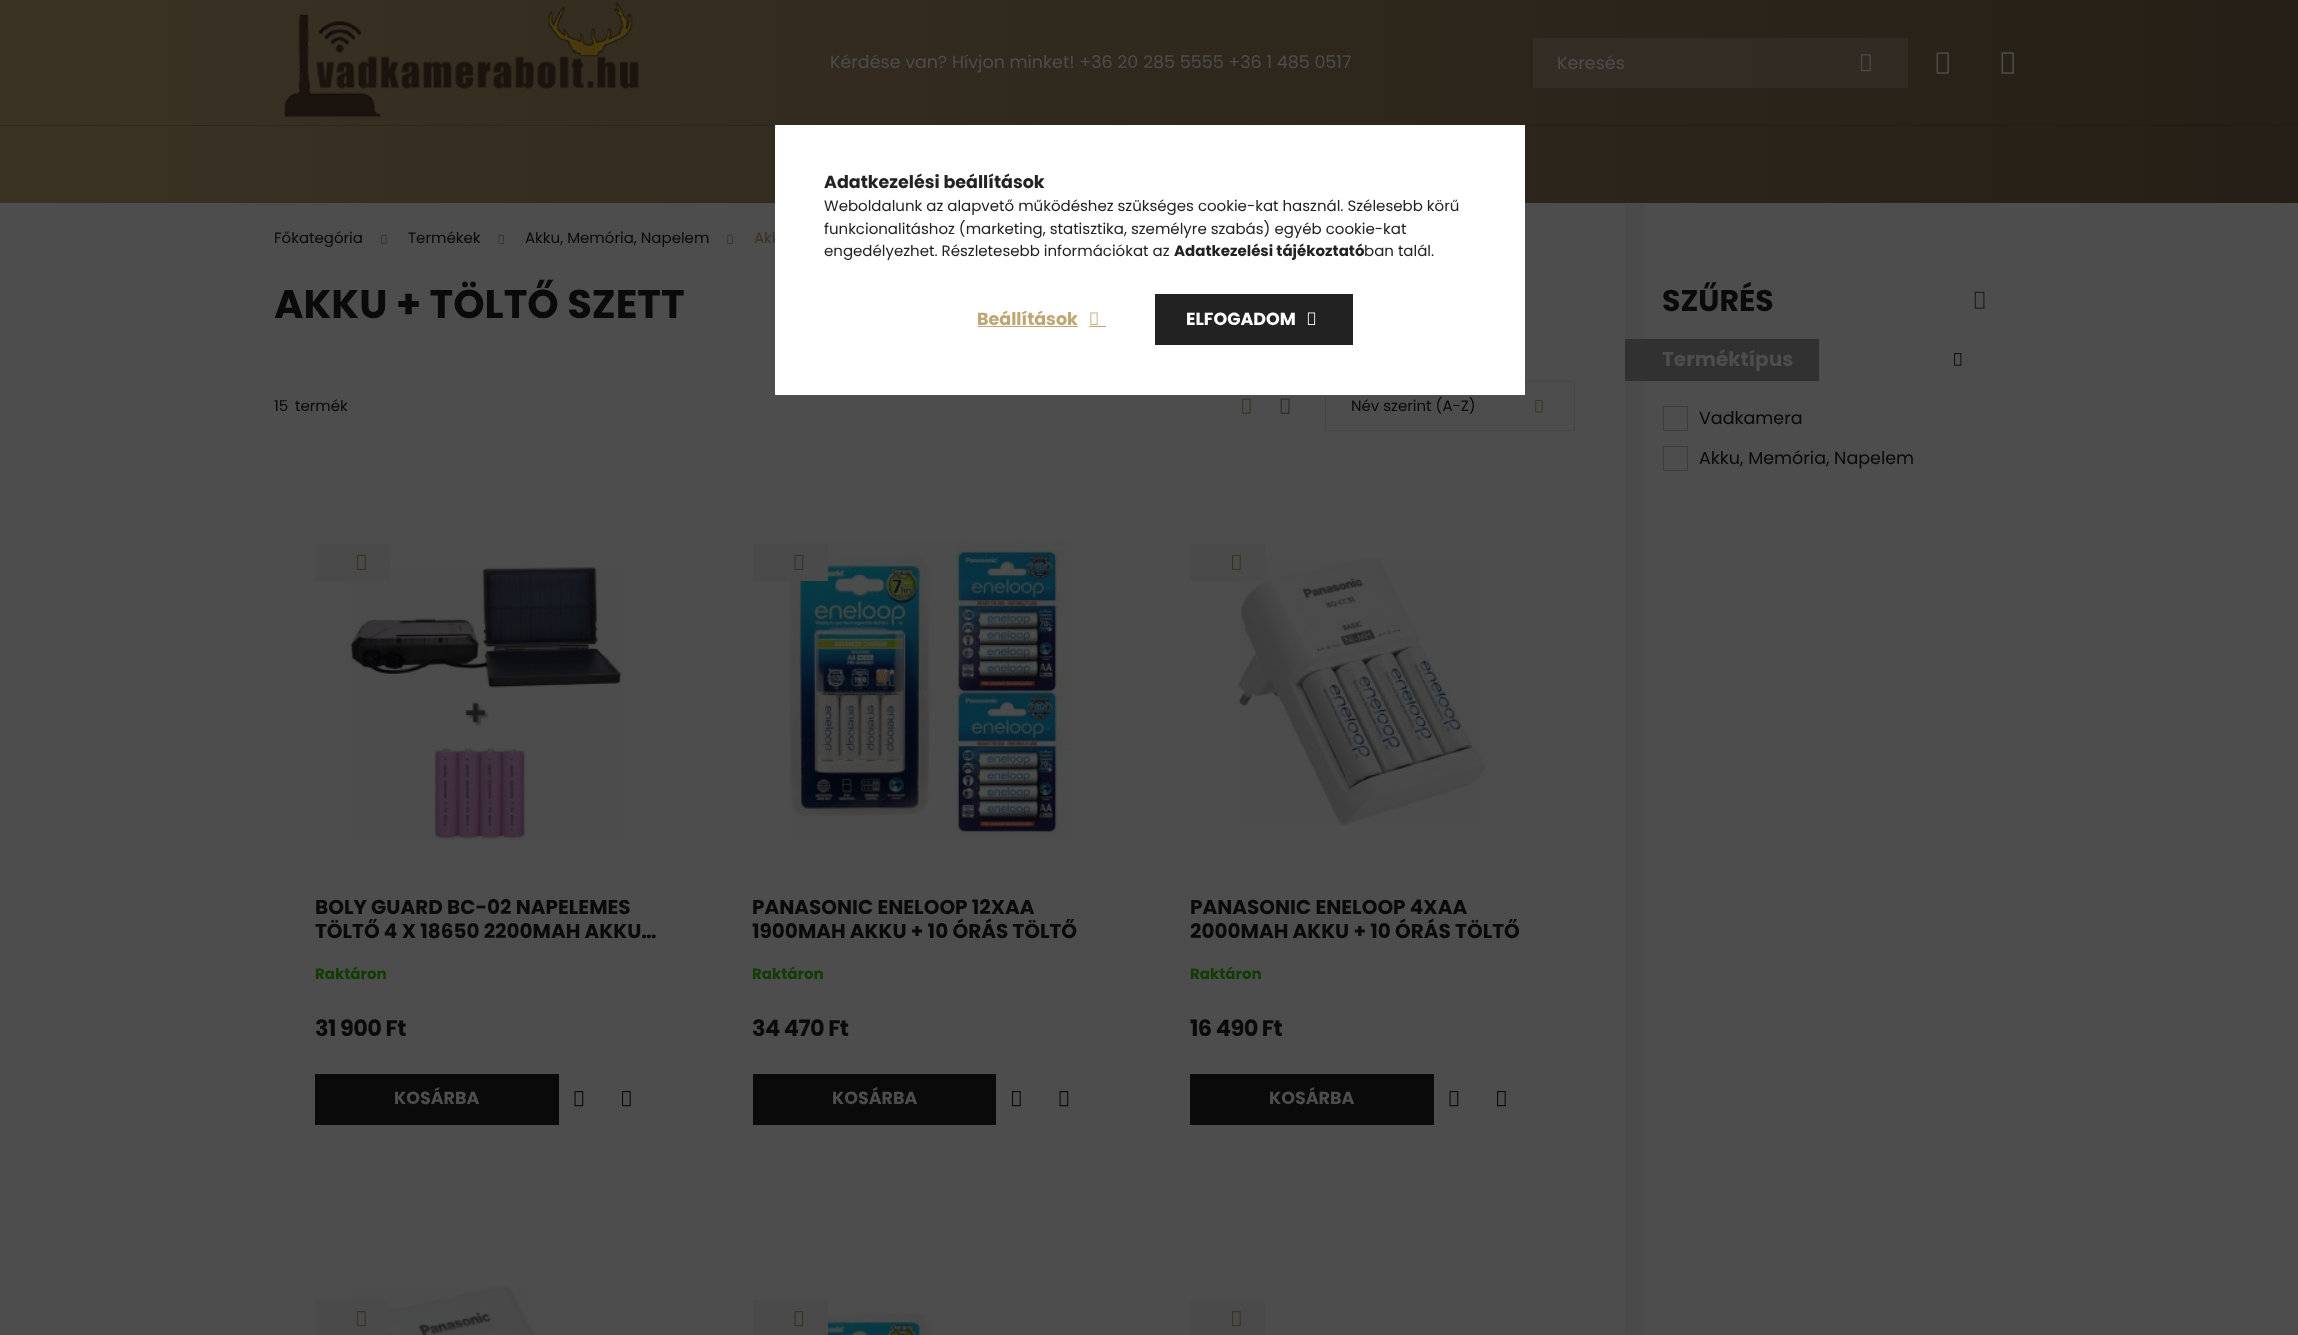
<?xml version="1.0" encoding="UTF-8"?>
<svg xmlns="http://www.w3.org/2000/svg" xmlns:xlink="http://www.w3.org/1999/xlink" width="2298" height="1335">
  <defs>
    <linearGradient id="g1" gradientUnits="userSpaceOnUse" x1="0" y1="63" x2="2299" y2="62"><stop offset="0" stop-color="#3a3223" /><stop offset="1" stop-color="#261f17" /></linearGradient>
    <linearGradient id="g2" gradientUnits="userSpaceOnUse" x1="0" y1="63" x2="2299" y2="62"><stop offset="0" stop-color="#3e372b" /><stop offset="1" stop-color="#2e2822" /></linearGradient>
    <linearGradient id="g3" gradientUnits="userSpaceOnUse" x1="0" y1="164" x2="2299" y2="164"><stop offset="0" stop-color="#3a3223" /><stop offset="1" stop-color="#261f17" /></linearGradient>
    <linearGradient id="g4" gradientUnits="userSpaceOnUse" x1="0" y1="164" x2="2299" y2="164"><stop offset="0" stop-color="#302a1e" /><stop offset="1" stop-color="#211b14" /></linearGradient>
    <linearGradient id="g5" gradientUnits="userSpaceOnUse" x1="-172" y1="1099" x2="559" y2="1099"><stop offset="0" stop-color="#3a3223" /><stop offset="0.33" stop-color="#261f17" /><stop offset="0.67" stop-color="#0a0a0a" /><stop offset="1" stop-color="#0a0a0a" /></linearGradient>
    <linearGradient id="g6" gradientUnits="userSpaceOnUse" x1="265" y1="1099" x2="996" y2="1099"><stop offset="0" stop-color="#3a3223" /><stop offset="0.33" stop-color="#261f17" /><stop offset="0.67" stop-color="#0a0a0a" /><stop offset="1" stop-color="#0a0a0a" /></linearGradient>
    <linearGradient id="g7" gradientUnits="userSpaceOnUse" x1="703" y1="1099" x2="1434" y2="1099"><stop offset="0" stop-color="#3a3223" /><stop offset="0.33" stop-color="#261f17" /><stop offset="0.67" stop-color="#0a0a0a" /><stop offset="1" stop-color="#0a0a0a" /></linearGradient>
    <linearGradient id="g8" gradientUnits="userSpaceOnUse" x1="1625" y1="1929" x2="1994" y2="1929"><stop offset="0" stop-color="#4a4a4a" /><stop offset="0.31" stop-color="#4d4d4d" /><stop offset="1" stop-color="#4d4d4d" /></linearGradient>
    <linearGradient id="g9" gradientUnits="userSpaceOnUse" x1="760" y1="319" x2="1353" y2="319"><stop offset="0" stop-color="#c0a673" /><stop offset="0.33" stop-color="#80674d" /><stop offset="0.67" stop-color="#222222" /><stop offset="1" stop-color="#222222" /></linearGradient>
  </defs>
  <rect width="100%" height="100%" fill="#4d4d4d" />
  <rect width="2298" height="125" fill="url(#g1)" />
  <rect x="1533" y="38" width="375" height="50" fill="url(#g2)" />
  <image x="283" y="2" width="356" height="116" xlink:href="image1.png" />
  <image x="1861" y="54" width="10" height="18" xlink:href="image2.png" />
  <image x="1936" y="52" width="13" height="22" xlink:href="image3.png" />
  <image x="2001" y="52" width="13" height="22" xlink:href="image4.png" />
  <rect y="126" width="2298" height="77" fill="url(#g3)" />
  <rect y="125" width="2298" height="1" fill="url(#g4)" />
  <image x="381" y="234" width="6" height="10" xlink:href="image5.png" />
  <image x="498" y="234" width="6" height="10" xlink:href="image6.png" />
  <image x="727" y="234" width="6" height="10" xlink:href="image7.png" />
  <image x="1242" y="398" width="9" height="16" xlink:href="image8.png" />
  <image x="1280" y="398" width="10" height="16" xlink:href="image9.png" />
  <rect x="1325.5" y="381.5" width="249" height="49" fill="none" stroke="#464646" />
  <image x="1535" y="400" width="8" height="13" xlink:href="image10.png" />
  <image x="346" y="566" width="279" height="274" xlink:href="image12.png" />
  <rect x="315" y="544" width="75" height="37" fill="#4a4a4a" />
  <image x="357" y="554" width="9" height="16" xlink:href="image11.png" />
  <rect x="315" y="1074" width="244" height="51" fill="url(#g5)" />
  <image x="574" y="1091" width="10" height="16" xlink:href="image13.png" />
  <image x="622" y="1091" width="9" height="16" xlink:href="image14.png" />
  <image x="789" y="539" width="284" height="300" xlink:href="image15.png" />
  <rect x="753" y="544" width="75" height="37" fill="#4a4a4a" />
  <image x="794" y="554" width="10" height="16" xlink:href="image16.png" />
  <rect x="753" y="1074" width="243" height="51" fill="url(#g6)" />
  <image x="1012" y="1091" width="9" height="16" xlink:href="image14.png" />
  <image x="1059" y="1091" width="10" height="16" xlink:href="image13.png" />
  <image x="1237" y="557" width="249" height="269" xlink:href="image17.png" />
  <rect x="1190" y="544" width="75" height="37" fill="#4a4a4a" />
  <image x="1232" y="554" width="9" height="16" xlink:href="image11.png" />
  <rect x="1190" y="1074" width="244" height="51" fill="url(#g7)" />
  <image x="1449" y="1091" width="10" height="16" xlink:href="image13.png" />
  <image x="1497" y="1091" width="9" height="16" xlink:href="image14.png" />
  <image x="351" y="1286" width="183" height="49" xlink:href="image18.png" />
  <rect x="315" y="1300" width="74" height="35" fill="#4a4a4a" />
  <image x="357" y="1311" width="9" height="16" xlink:href="image19.png" />
  <rect x="753" y="1300" width="75" height="35" fill="#4a4a4a" />
  <image x="794" y="1311" width="10" height="16" xlink:href="image20.png" />
  <image x="828" y="1313" width="105" height="22" xlink:href="image21.png" />
  <rect x="1190" y="1300" width="75" height="35" fill="#4a4a4a" />
  <image x="1232" y="1311" width="9" height="16" xlink:href="image19.png" />
  <rect x="1625" y="203" width="19" height="1132" fill="url(#g8)" />
  <image x="1974" y="291" width="11" height="18" xlink:href="image22.png" />
  <rect x="1625" y="339" width="194" height="42" fill="#313131" />
  <image x="1954" y="353" width="8" height="13" xlink:href="image23.png" />
  <rect x="1663.5" y="406.5" width="24" height="24" fill="none" stroke="#3d3d3d" />
  <rect x="1663.5" y="446.5" width="24" height="24" fill="none" stroke="#3d3d3d" />
  <text x="830" y="68" style="font-family: Poppins; font-size: 17.5px; fill: #4d4d4d">Kérdése van? Hívjon minket! +36 20 285 5555 +36 1 485 0517</text>
  <text x="1557" y="69" style="font-family: Poppins; font-size: 17.5px; fill: #4d4d4d">Keresés</text>
  <text x="274" y="243" style="font-family: Poppins; font-size: 15px; fill: #0a0a0a">Főkategória</text>
  <text x="408" y="243" style="font-family: Poppins; font-size: 15px; fill: #0a0a0a">Termékek</text>
  <text x="525" y="243" style="font-family: Poppins; font-size: 15px; fill: #0a0a0a">Akku, Memória, Napelem</text>
  <text x="754" y="243" style="font-family: Poppins; font-size: 15px; fill: #3a3223">Akk</text>
  <text x="274" y="318" style="font-family: Poppins; font-size: 40px; font-weight: bold; fill: #0a0a0a">AKKU + TÖLTŐ SZETT</text>
  <text x="274" y="411" style="font-family: Poppins; font-size: 15px; fill: #0a0a0a">15</text>
  <text x="295" y="411" style="font-family: Poppins; font-size: 15px; fill: #0a0a0a">termék</text>
  <text x="1351" y="411" style="font-family: Poppins; font-size: 15px; fill: #0a0a0a">Név szerint (A-Z)</text>
  <text x="315" y="914" style="font-family: Poppins; font-size: 20px; font-weight: bold; fill: #0a0a0a">BOLY GUARD BC-02 NAPELEMES</text>
  <text x="315" y="938" style="font-family: Poppins; font-size: 20px; font-weight: bold; fill: #0a0a0a">TÖLTŐ 4 X 18650 2200MAH AKKU…</text>
  <text x="315" y="979" style="font-family: Poppins; font-size: 15px; font-weight: bold; fill: #103c00">Raktáron</text>
  <text x="315" y="1036" style="font-family: Poppins; font-size: 22.5px; font-weight: bold; letter-spacing: -0.6px; fill: #0a0a0a">31 900 Ft</text>
  <text x="394" y="1104" style="font-family: Poppins; font-size: 17.5px; font-weight: bold; fill: #4d4d4d">KOSÁRBA</text>
  <text x="752" y="914" style="font-family: Poppins; font-size: 20px; font-weight: bold; fill: #0a0a0a">PANASONIC ENELOOP 12XAA</text>
  <text x="752" y="938" style="font-family: Poppins; font-size: 20px; font-weight: bold; fill: #0a0a0a">1900MAH AKKU + 10 ÓRÁS TÖLTŐ</text>
  <text x="752" y="979" style="font-family: Poppins; font-size: 15px; font-weight: bold; fill: #103c00">Raktáron</text>
  <text x="752" y="1036" style="font-family: Poppins; font-size: 22.5px; font-weight: bold; letter-spacing: -0.6px; fill: #0a0a0a">34 470 Ft</text>
  <text x="832" y="1104" style="font-family: Poppins; font-size: 17.5px; font-weight: bold; fill: #4d4d4d">KOSÁRBA</text>
  <text x="1190" y="914" style="font-family: Poppins; font-size: 20px; font-weight: bold; fill: #0a0a0a">PANASONIC ENELOOP 4XAA</text>
  <text x="1190" y="938" style="font-family: Poppins; font-size: 20px; font-weight: bold; fill: #0a0a0a">2000MAH AKKU + 10 ÓRÁS TÖLTŐ</text>
  <text x="1190" y="979" style="font-family: Poppins; font-size: 15px; font-weight: bold; fill: #103c00">Raktáron</text>
  <text x="1190" y="1036" style="font-family: Poppins; font-size: 22.5px; font-weight: bold; letter-spacing: -0.6px; fill: #0a0a0a">16 490 Ft</text>
  <text x="1269" y="1104" style="font-family: Poppins; font-size: 17.5px; font-weight: bold; fill: #4d4d4d">KOSÁRBA</text>
  <text x="1662" y="311" style="font-family: Poppins; font-size: 30px; font-weight: bold; fill: #0a0a0a">SZŰRÉS</text>
  <text x="1662" y="366" style="font-family: Poppins; font-size: 20px; font-weight: bold; fill: #4d4d4d">Terméktípus</text>
  <text x="1699" y="424" style="font-family: Poppins; font-size: 17.5px; fill: #0a0a0a">Vadkamera</text>
  <text x="1699" y="464" style="font-family: Poppins; font-size: 17.5px; fill: #0a0a0a">Akku, Memória, Napelem</text>
  <rect x="775" y="125" width="750" height="270" fill="#ffffff" />
  <text x="824" y="188" style="font-family: Poppins; font-size: 17.5px; font-weight: bold; fill: #222222">Adatkezelési beállítások</text>
  <text x="824" y="211" style="font-family: Poppins; font-size: 15px; fill: #222222">Weboldalunk az alapvető működéshez szükséges cookie-kat használ. Szélesebb körű</text>
  <text x="824" y="234" style="font-family: Poppins; font-size: 15px; fill: #222222">funkcionalitáshoz (marketing, statisztika, személyre szabás) egyéb cookie-kat</text>
  <text x="824" y="256" style="font-family: Poppins; font-size: 15px; fill: #222222">engedélyezhet. Részletesebb információkat az</text>
  <text x="1174" y="256" style="font-family: Poppins; font-size: 15px; font-weight: bold; fill: #222222">Adatkezelési tájékoztató</text>
  <text x="1364" y="256" style="font-family: Poppins; font-size: 15px; fill: #222222">ban talál.</text>
  <text x="977" y="325" style="font-family: Poppins; font-size: 17.5px; font-weight: bold; fill: #c0a673">Beállítások</text>
  <rect x="978" y="326" width="100" height="1" fill="#c0a673" />
  <image x="1090" y="312" width="8" height="13" xlink:href="image24.png" />
  <rect x="1089" y="326" width="17" height="1" fill="#c0a673" />
  <rect x="1155" y="294" width="198" height="51" fill="url(#g9)" />
  <text x="1186" y="325" style="font-family: Poppins; font-size: 17.5px; font-weight: bold; fill: #ffffff">ELFOGADOM</text>
  <image x="1307" y="312" width="9" height="13" xlink:href="image25.png" />
</svg>
